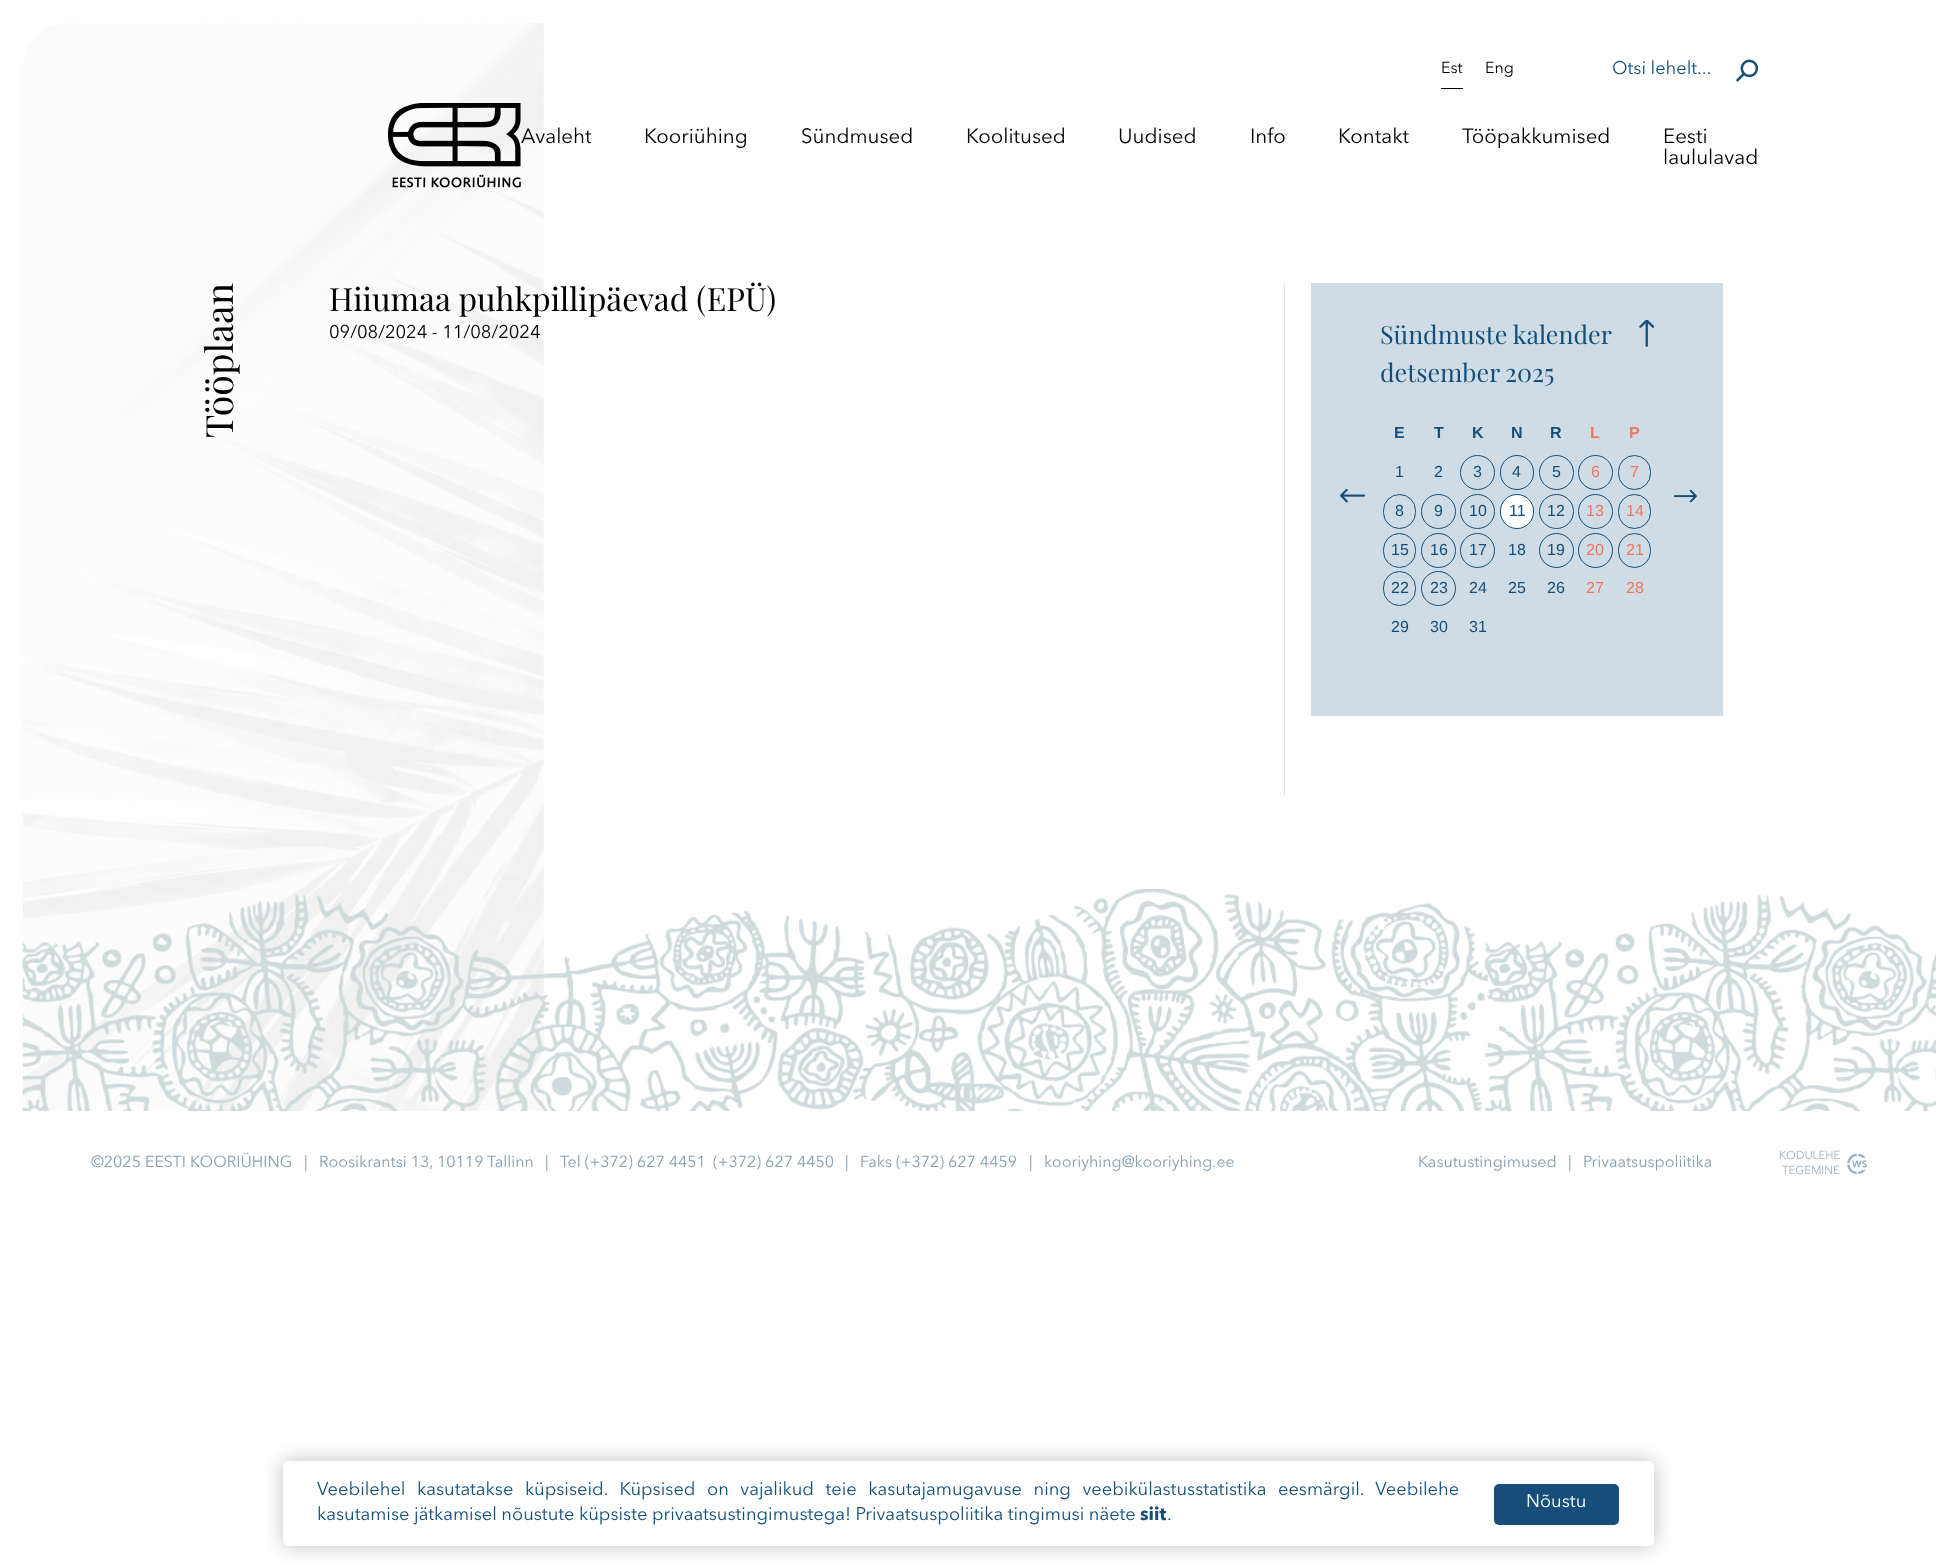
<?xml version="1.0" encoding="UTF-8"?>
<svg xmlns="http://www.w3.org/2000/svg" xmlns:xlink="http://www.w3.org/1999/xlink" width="1936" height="1564">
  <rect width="100%" height="100%" fill="#ffffff" />
  <image x="22" y="23" width="522" height="1193" xlink:href="image1.png" />
  <image x="388" y="103" width="133" height="85" xlink:href="image2.png" />
  <rect x="1441" y="88" width="22" height="1" fill="#000000" />
  <image x="1736" y="59" width="23" height="23" xlink:href="image3.png" />
  <rect x="1284" y="283" width="1" height="512" fill="#ebdee2" />
  <rect x="1311" y="283" width="412" height="433" fill="#cfdce6" />
  <image x="1639" y="320" width="15" height="27" xlink:href="image4.png" />
  <image x="1340" y="489" width="26" height="14" xlink:href="image5.png" />
  <image x="1674" y="489" width="23" height="14" xlink:href="image6.png" />
  <circle cx="1477.5" cy="472.5" r="17" fill="none" stroke="#154f79" />
  <rect x="1500.5" y="455.5" width="33" height="34" rx="16.5" fill="none" stroke="#154f79" />
  <circle cx="1556.5" cy="472.5" r="17" fill="none" stroke="#154f79" />
  <circle cx="1595.5" cy="472.5" r="17" fill="none" stroke="#154f79" />
  <rect x="1618.5" y="455.5" width="32" height="34" rx="16" fill="none" stroke="#154f79" />
  <rect x="1383.5" y="494.5" width="32" height="34" rx="16" fill="none" stroke="#154f79" />
  <circle cx="1438.5" cy="511.5" r="17" fill="none" stroke="#154f79" />
  <circle cx="1477.5" cy="511.5" r="17" fill="none" stroke="#154f79" />
  <rect x="1500.5" y="494.5" width="33" height="34" rx="16.5" fill="#ffffff" stroke="#154f79" />
  <circle cx="1556.5" cy="511.5" r="17" fill="none" stroke="#154f79" />
  <circle cx="1595.5" cy="511.5" r="17" fill="none" stroke="#154f79" />
  <rect x="1618.5" y="494.5" width="32" height="34" rx="16" fill="none" stroke="#154f79" />
  <rect x="1383.5" y="533.5" width="32" height="34" rx="16" fill="none" stroke="#154f79" />
  <circle cx="1438.5" cy="550.5" r="17" fill="none" stroke="#154f79" />
  <circle cx="1477.5" cy="550.5" r="17" fill="none" stroke="#154f79" />
  <circle cx="1556.5" cy="550.5" r="17" fill="none" stroke="#154f79" />
  <circle cx="1595.5" cy="550.5" r="17" fill="none" stroke="#154f79" />
  <rect x="1618.5" y="533.5" width="32" height="34" rx="16" fill="none" stroke="#154f79" />
  <rect x="1383.5" y="571.5" width="32" height="34" rx="16" fill="none" stroke="#154f79" />
  <circle cx="1438.5" cy="588.5" r="17" fill="none" stroke="#154f79" />
  <rect x="23" y="1111" width="521" height="105" fill="#ffffff" />
  <image x="22" y="889" width="1914" height="223" xlink:href="image7.png" />
  <image x="1847" y="1153" width="20" height="22" xlink:href="image8.png" />
  <rect x="283" y="1461" width="1371" height="85" rx="5" fill="#000000" fill-opacity="0.25" filter="blur(9.5px)" />
  <rect x="283" y="1461" width="1371" height="85" rx="5" fill="#ffffff" />
  <rect x="1494" y="1484" width="125" height="41" rx="5" fill="#154f79" />
  <text x="1441" y="73" style="font-family: Avenir Next; font-size: 16px; fill: #010101">Est</text>
  <text x="1485" y="73" style="font-family: Avenir Next; font-size: 16px; fill: #010101">Eng</text>
  <text x="1612" y="74" style="font-family: Avenir Next; font-size: 18.27px; fill: #154f79">Otsi lehelt...</text>
  <text x="521" y="143" style="font-family: Avenir Next; font-size: 20.5px; fill: #010101">Avaleht</text>
  <text x="644" y="143" style="font-family: Avenir Next; font-size: 20.5px; fill: #010101">Kooriühing</text>
  <text x="801" y="143" style="font-family: Avenir Next; font-size: 20.5px; fill: #010101">Sündmused</text>
  <text x="966" y="143" style="font-family: Avenir Next; font-size: 20.5px; fill: #010101">Koolitused</text>
  <text x="1118" y="143" style="font-family: Avenir Next; font-size: 20.5px; fill: #010101">Uudised</text>
  <text x="1250" y="143" style="font-family: Avenir Next; font-size: 20.5px; fill: #010101">Info</text>
  <text x="1338" y="143" style="font-family: Avenir Next; font-size: 20.5px; fill: #010101">Kontakt</text>
  <text x="1462" y="143" style="font-family: Avenir Next; font-size: 20.5px; fill: #010101">Tööpakkumised</text>
  <text x="1663" y="143" style="font-family: Avenir Next; font-size: 20.5px; fill: #010101">Eesti</text>
  <text x="1663" y="164" style="font-family: Avenir Next; font-size: 20.5px; fill: #010101">laululavad</text>
  <text x="233" y="438" transform="rotate(-90 233 438)" style="font-family: Playfair Display; font-size: 37.5px; fill: #010101">Tööplaan</text>
  <text x="329" y="311" style="font-family: Playfair Display; font-size: 32px; fill: #010101">Hiiumaa puhkpillipäevad (EPÜ)</text>
  <text x="329" y="338" style="font-family: Avenir Next; font-size: 18.27px; fill: #010101">09/08/2024 - 11/08/2024</text>
  <text x="1380" y="344" style="font-family: Playfair Display; font-size: 25.1px; fill: #154f79">Sündmuste kalender</text>
  <text x="1380" y="382" style="font-family: Playfair Display; font-size: 25.1px; fill: #154f79">detsember</text>
  <text x="1505" y="382" style="font-family: Playfair Display; font-size: 25.1px; fill: #154f79">2025</text>
  <text x="1394" y="438" style="font-family: Liberation Sans; font-size: 16px; font-weight: bold; fill: #154f79">E</text>
  <text x="1434" y="438" style="font-family: Liberation Sans; font-size: 16px; font-weight: bold; fill: #154f79">T</text>
  <text x="1472" y="438" style="font-family: Liberation Sans; font-size: 16px; font-weight: bold; fill: #154f79">K</text>
  <text x="1511" y="438" style="font-family: Liberation Sans; font-size: 16px; font-weight: bold; fill: #154f79">N</text>
  <text x="1550" y="438" style="font-family: Liberation Sans; font-size: 16px; font-weight: bold; fill: #154f79">R</text>
  <text x="1590" y="438" style="font-family: Liberation Sans; font-size: 16px; font-weight: bold; fill: #f37560">L</text>
  <text x="1629" y="438" style="font-family: Liberation Sans; font-size: 16px; font-weight: bold; fill: #f37560">P</text>
  <text x="1395" y="477" style="font-family: Liberation Sans; font-size: 16px; fill: #154f79">1</text>
  <text x="1434" y="477" style="font-family: Liberation Sans; font-size: 16px; fill: #154f79">2</text>
  <text x="1473" y="477" style="font-family: Liberation Sans; font-size: 16px; fill: #154f79">3</text>
  <text x="1512" y="477" style="font-family: Liberation Sans; font-size: 16px; fill: #154f79">4</text>
  <text x="1552" y="477" style="font-family: Liberation Sans; font-size: 16px; fill: #154f79">5</text>
  <text x="1591" y="477" style="font-family: Liberation Sans; font-size: 16px; fill: #f37560">6</text>
  <text x="1630" y="477" style="font-family: Liberation Sans; font-size: 16px; fill: #f37560">7</text>
  <text x="1395" y="516" style="font-family: Liberation Sans; font-size: 16px; fill: #154f79">8</text>
  <text x="1434" y="516" style="font-family: Liberation Sans; font-size: 16px; fill: #154f79">9</text>
  <text x="1469" y="516" style="font-family: Liberation Sans; font-size: 16px; fill: #154f79">10</text>
  <text x="1509" y="516" style="font-family: Liberation Sans; font-size: 16px; fill: #154f79">11</text>
  <text x="1547" y="516" style="font-family: Liberation Sans; font-size: 16px; fill: #154f79">12</text>
  <text x="1586" y="516" style="font-family: Liberation Sans; font-size: 16px; fill: #f37560">13</text>
  <text x="1626" y="516" style="font-family: Liberation Sans; font-size: 16px; fill: #f37560">14</text>
  <text x="1391" y="555" style="font-family: Liberation Sans; font-size: 16px; fill: #154f79">15</text>
  <text x="1430" y="555" style="font-family: Liberation Sans; font-size: 16px; fill: #154f79">16</text>
  <text x="1469" y="555" style="font-family: Liberation Sans; font-size: 16px; fill: #154f79">17</text>
  <text x="1508" y="555" style="font-family: Liberation Sans; font-size: 16px; fill: #154f79">18</text>
  <text x="1547" y="555" style="font-family: Liberation Sans; font-size: 16px; fill: #154f79">19</text>
  <text x="1586" y="555" style="font-family: Liberation Sans; font-size: 16px; fill: #f37560">20</text>
  <text x="1626" y="555" style="font-family: Liberation Sans; font-size: 16px; fill: #f37560">21</text>
  <text x="1391" y="593" style="font-family: Liberation Sans; font-size: 16px; fill: #154f79">22</text>
  <text x="1430" y="593" style="font-family: Liberation Sans; font-size: 16px; fill: #154f79">23</text>
  <text x="1469" y="593" style="font-family: Liberation Sans; font-size: 16px; fill: #154f79">24</text>
  <text x="1508" y="593" style="font-family: Liberation Sans; font-size: 16px; fill: #154f79">25</text>
  <text x="1547" y="593" style="font-family: Liberation Sans; font-size: 16px; fill: #154f79">26</text>
  <text x="1586" y="593" style="font-family: Liberation Sans; font-size: 16px; fill: #f37560">27</text>
  <text x="1626" y="593" style="font-family: Liberation Sans; font-size: 16px; fill: #f37560">28</text>
  <text x="1391" y="632" style="font-family: Liberation Sans; font-size: 16px; fill: #154f79">29</text>
  <text x="1430" y="632" style="font-family: Liberation Sans; font-size: 16px; fill: #154f79">30</text>
  <text x="1469" y="632" style="font-family: Liberation Sans; font-size: 16px; fill: #154f79">31</text>
  <text x="91" y="1167" style="font-family: Avenir Next; font-size: 16px; fill: #85a0b3">©2025 EESTI KOORIÜHING</text>
  <text x="304" y="1167" style="font-family: Avenir Next; font-size: 16px; fill: #85a0b3">|</text>
  <text x="319" y="1167" style="font-family: Avenir Next; font-size: 16px; fill: #85a0b3">Roosikrantsi 13, 10119 Tallinn</text>
  <text x="545" y="1167" style="font-family: Avenir Next; font-size: 16px; fill: #85a0b3">|</text>
  <text x="560" y="1167" style="font-family: Avenir Next; font-size: 16px; fill: #85a0b3">Tel (+372) 627 4451</text>
  <text x="713" y="1167" style="font-family: Avenir Next; font-size: 16px; fill: #85a0b3">(+372) 627 4450</text>
  <text x="845" y="1167" style="font-family: Avenir Next; font-size: 16px; fill: #85a0b3">|</text>
  <text x="860" y="1167" style="font-family: Avenir Next; font-size: 16px; fill: #85a0b3">Faks (+372) 627 4459</text>
  <text x="1029" y="1167" style="font-family: Avenir Next; font-size: 16px; fill: #85a0b3">|</text>
  <text x="1044" y="1167" style="font-family: Avenir Next; font-size: 16px; fill: #85a0b3">kooriyhing@kooriyhing.ee</text>
  <text x="1418" y="1167" style="font-family: Avenir Next; font-size: 16px; fill: #85a0b3">Kasutustingimused</text>
  <text x="1568" y="1167" style="font-family: Avenir Next; font-size: 16px; fill: #85a0b3">|</text>
  <text x="1583" y="1167" style="font-family: Avenir Next; font-size: 16px; fill: #85a0b3">Privaatsuspoliitika</text>
  <text x="1779" y="1159" style="font-family: Avenir Next; font-size: 11.5px; fill: #9db3c2">KODULEHE</text>
  <text x="1782" y="1174" style="font-family: Avenir Next; font-size: 11.5px; fill: #9db3c2">TEGEMINE</text>
  <text x="317" y="1495" word-spacing="7" style="font-family: Avenir Next; font-size: 18.27px; fill: #154f79">Veebilehel kasutatakse küpsiseid. Küpsised on vajalikud teie kasutajamugavuse ning veebikülastusstatistika eesmärgil. Veebilehe</text>
  <text x="317" y="1520" style="font-family: Avenir Next; font-size: 18.27px; fill: #154f79">kasutamise jätkamisel nõustute küpsiste privaatsustingimustega! Privaatsuspoliitika tingimusi näete</text>
  <text x="1140" y="1520" style="font-family: Avenir Next; font-size: 18.27px; font-weight: bold; fill: #154f79">siit</text>
  <text x="1167" y="1520" style="font-family: Avenir Next; font-size: 18.27px; fill: #154f79">.</text>
  <text x="1526" y="1507" style="font-family: Avenir Next; font-size: 18.27px; fill: #ffffff">Nõustu</text>
</svg>
